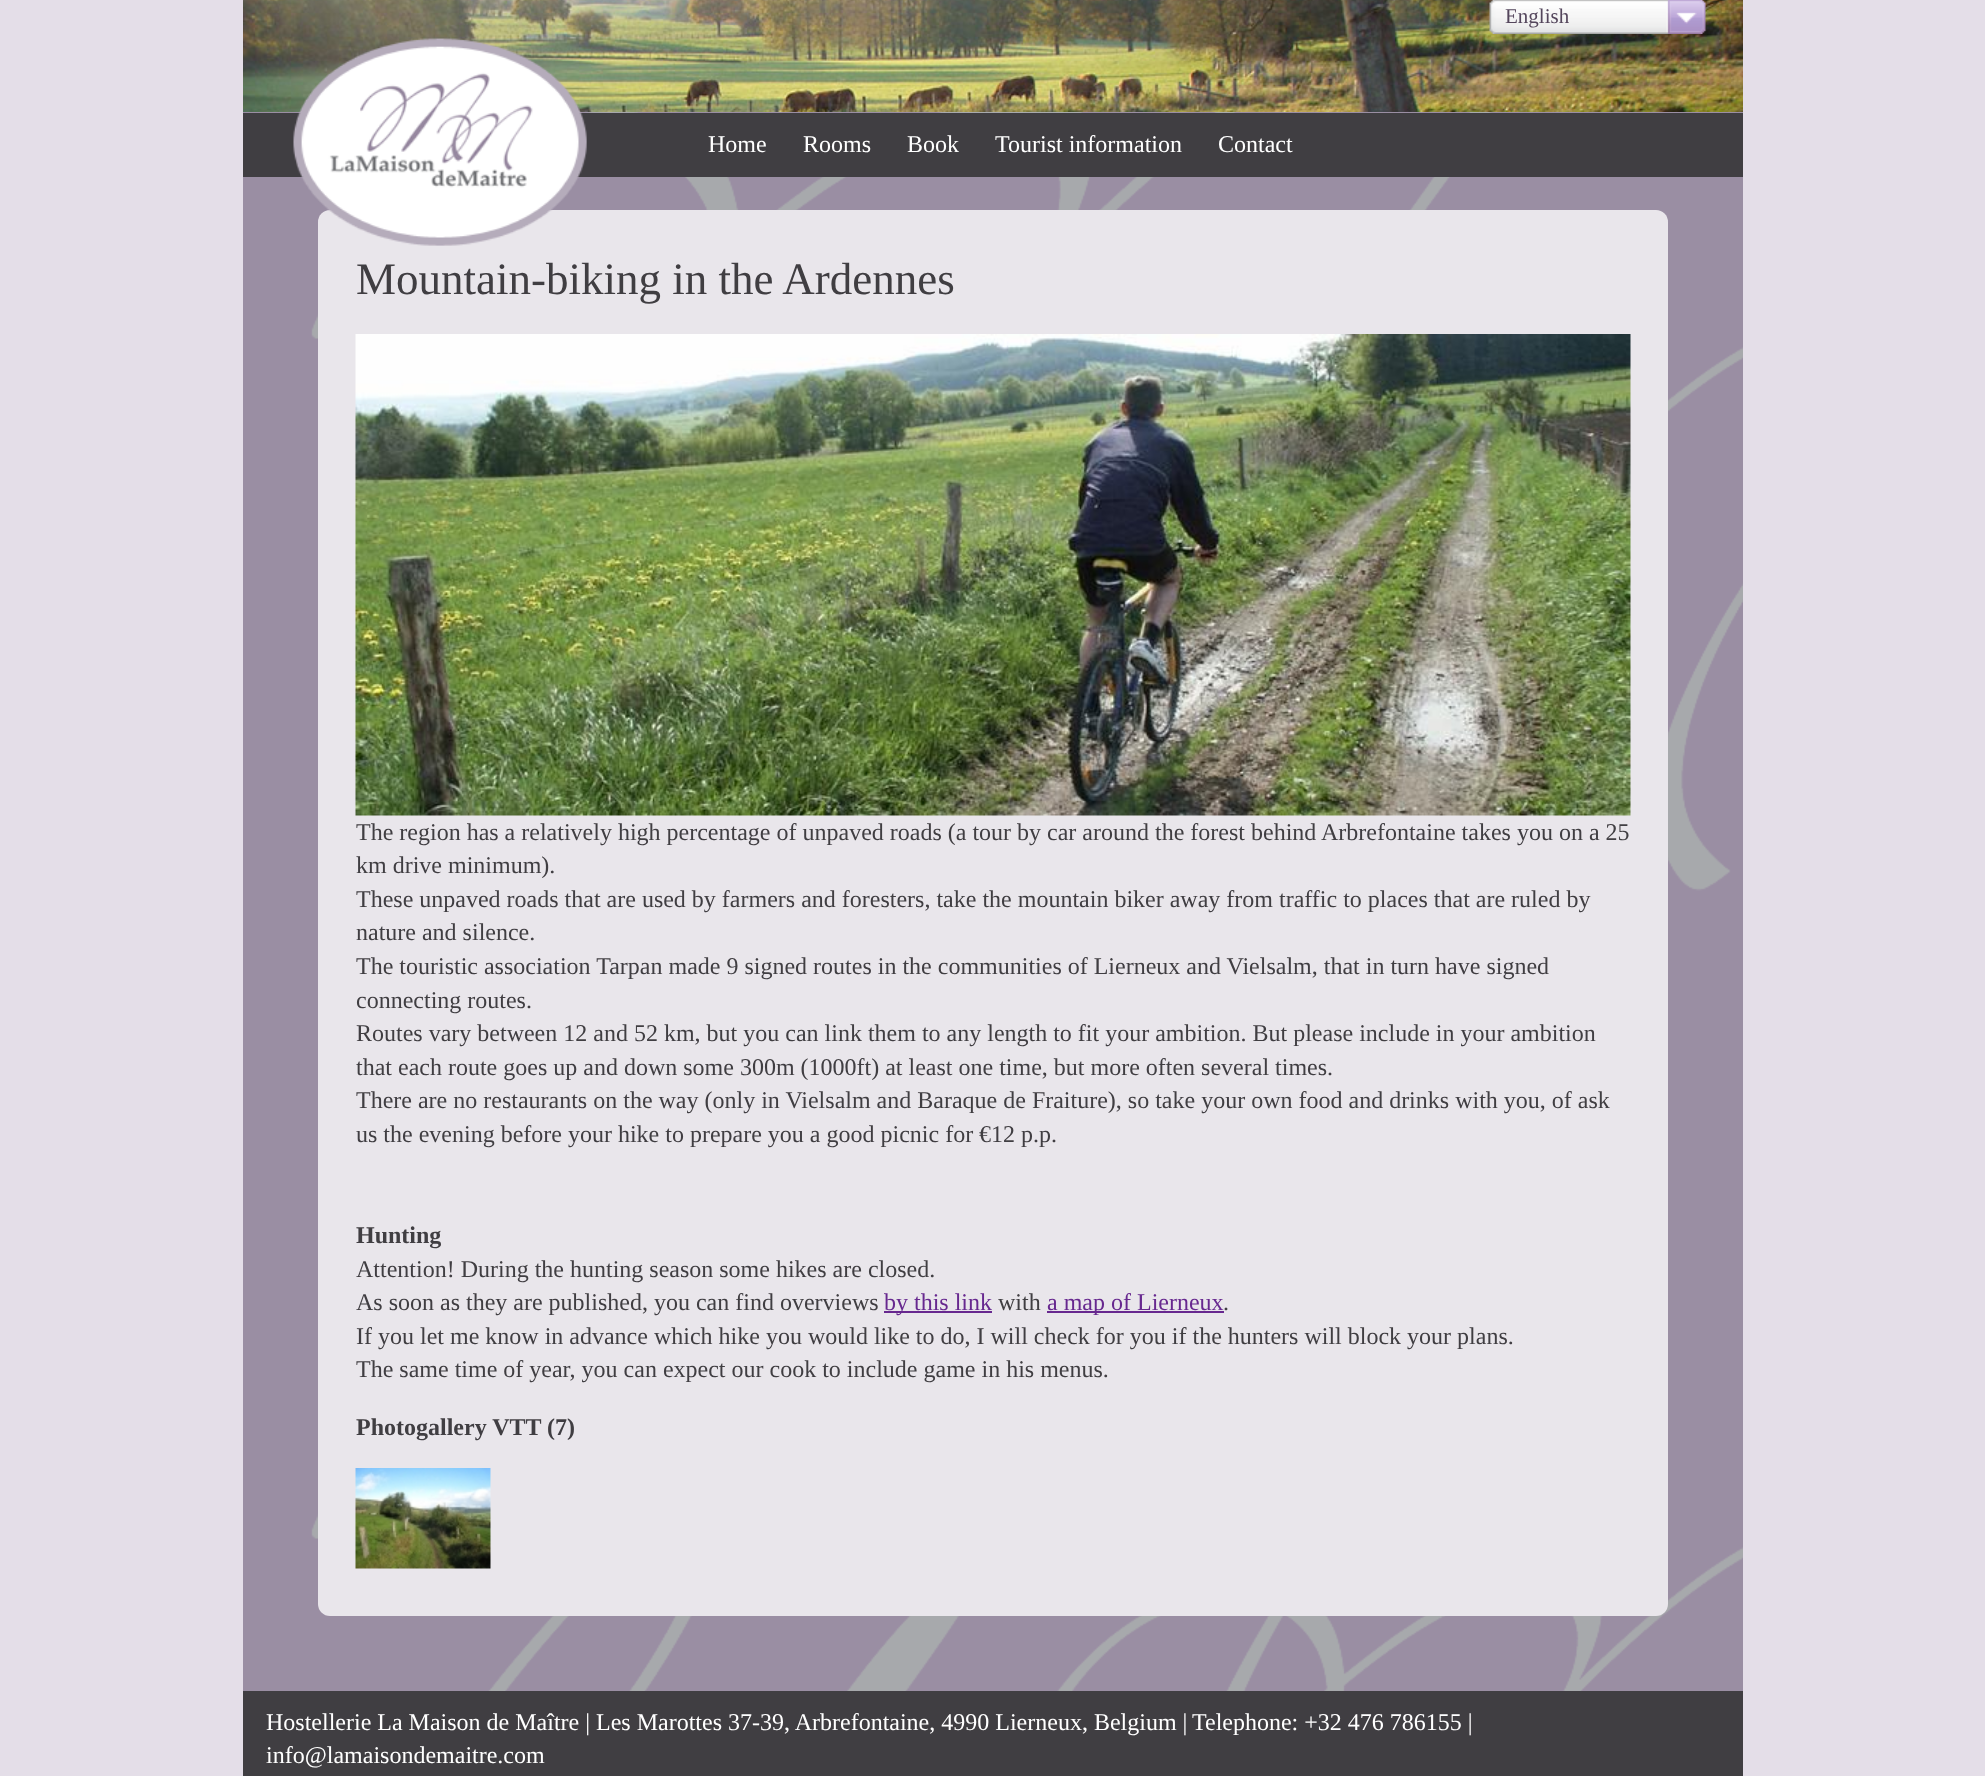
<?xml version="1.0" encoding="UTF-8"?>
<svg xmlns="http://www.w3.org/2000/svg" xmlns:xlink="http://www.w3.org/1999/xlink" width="1985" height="1776">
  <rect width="100%" height="100%" fill="#e4dee8" />
  <image x="243" y="112" width="1500" height="1579" xlink:href="image1.png" />
  <image x="243" y="0" width="1500" height="112" xlink:href="image3.png" />
  <image x="1489" y="0" width="217" height="34" xlink:href="image2.png" />
  <rect x="243" y="113" width="1500" height="64" fill="#403e42" />
  <rect x="318" y="210" width="1350" height="1406" rx="12" fill="#e9e6eb" />
  <image x="293" y="38" width="294" height="208" xlink:href="image4.png" />
  <image x="355" y="334" width="1276" height="482" xlink:href="image5.png" />
  <rect x="884" y="1311" width="108" height="2" fill="#67288f" />
  <rect x="1047" y="1311" width="177" height="2" fill="#67288f" />
  <image x="355" y="1468" width="136" height="101" xlink:href="image6.png" />
  <rect x="243" y="1691" width="1500" height="85" fill="#403e42" />
  <text x="1505" y="23" style="font-family: Liberation Serif; font-size: 21px; fill: #54465c">English</text>
  <text x="708" y="152" style="font-family: Liberation Serif; font-size: 24px; fill: #ffffff">Home</text>
  <text x="803" y="152" style="font-family: Liberation Serif; font-size: 24px; fill: #ffffff">Rooms</text>
  <text x="907" y="152" style="font-family: Liberation Serif; font-size: 24px; fill: #ffffff">Book</text>
  <text x="995" y="152" style="font-family: Liberation Serif; font-size: 24px; fill: #ffffff">Tourist information</text>
  <text x="1218" y="152" style="font-family: Liberation Serif; font-size: 24px; fill: #ffffff">Contact</text>
  <text x="356" y="294" style="font-family: Liberation Serif; font-size: 45px; fill: #403e42">Mountain-biking in the Ardennes</text>
  <text x="356" y="840" style="font-family: Liberation Serif; font-size: 24px; fill: #403e42">The region has a relatively high percentage of unpaved roads (a tour by car around the forest behind Arbrefontaine takes you on a 25</text>
  <text x="356" y="873" style="font-family: Liberation Serif; font-size: 24px; fill: #403e42">km drive minimum).</text>
  <text x="356" y="907" style="font-family: Liberation Serif; font-size: 24px; fill: #403e42">These unpaved roads that are used by farmers and foresters, take the mountain biker away from traffic to places that are ruled by</text>
  <text x="356" y="940" style="font-family: Liberation Serif; font-size: 24px; fill: #403e42">nature and silence.</text>
  <text x="356" y="974" style="font-family: Liberation Serif; font-size: 24px; fill: #403e42">The touristic association Tarpan made 9 signed routes in the communities of Lierneux and Vielsalm, that in turn have signed</text>
  <text x="356" y="1008" style="font-family: Liberation Serif; font-size: 24px; fill: #403e42">connecting routes.</text>
  <text x="356" y="1041" style="font-family: Liberation Serif; font-size: 24px; fill: #403e42">Routes vary between 12 and 52 km, but you can link them to any length to fit your ambition. But please include in your ambition</text>
  <text x="356" y="1075" style="font-family: Liberation Serif; font-size: 24px; fill: #403e42">that each route goes up and down some 300m (1000ft) at least one time, but more often several times.</text>
  <text x="356" y="1108" style="font-family: Liberation Serif; font-size: 24px; fill: #403e42">There are no restaurants on the way (only in Vielsalm and Baraque de Fraiture), so take your own food and drinks with you, of ask</text>
  <text x="356" y="1142" style="font-family: Liberation Serif; font-size: 24px; fill: #403e42">us the evening before your hike to prepare you a good picnic for €12 p.p.</text>
  <text x="356" y="1243" style="font-family: Liberation Serif; font-size: 24px; font-weight: bold; fill: #403e42">Hunting</text>
  <text x="356" y="1277" style="font-family: Liberation Serif; font-size: 24px; fill: #403e42">Attention! During the hunting season some hikes are closed.</text>
  <text x="356" y="1310" style="font-family: Liberation Serif; font-size: 24px; fill: #403e42">As soon as they are published, you can find overviews</text>
  <text x="884" y="1310" style="font-family: Liberation Serif; font-size: 24px; fill: #67288f">by this link</text>
  <text x="998" y="1310" style="font-family: Liberation Serif; font-size: 24px; fill: #403e42">with</text>
  <text x="1047" y="1310" style="font-family: Liberation Serif; font-size: 24px; fill: #67288f">a map of Lierneux</text>
  <text x="1223" y="1310" style="font-family: Liberation Serif; font-size: 24px; fill: #403e42">.</text>
  <text x="356" y="1344" style="font-family: Liberation Serif; font-size: 24px; fill: #403e42">If you let me know in advance which hike you would like to do, I will check for you if the hunters will block your plans.</text>
  <text x="356" y="1377" style="font-family: Liberation Serif; font-size: 24px; fill: #403e42">The same time of year, you can expect our cook to include game in his menus.</text>
  <text x="356" y="1435" style="font-family: Liberation Serif; font-size: 24px; font-weight: bold; fill: #403e42">Photogallery VTT (7)</text>
  <text x="266" y="1730" style="font-family: Liberation Serif; font-size: 24px; fill: #ffffff">Hostellerie La Maison de Maître | Les Marottes 37-39, Arbrefontaine, 4990 Lierneux, Belgium |</text>
  <text x="1192" y="1730" style="font-family: Liberation Serif; font-size: 24px; fill: #ffffff">Telephone: +32 476 786155 |</text>
  <text x="266" y="1763" style="font-family: Liberation Serif; font-size: 24px; fill: #ffffff">info@lamaisondemaitre.com</text>
</svg>
